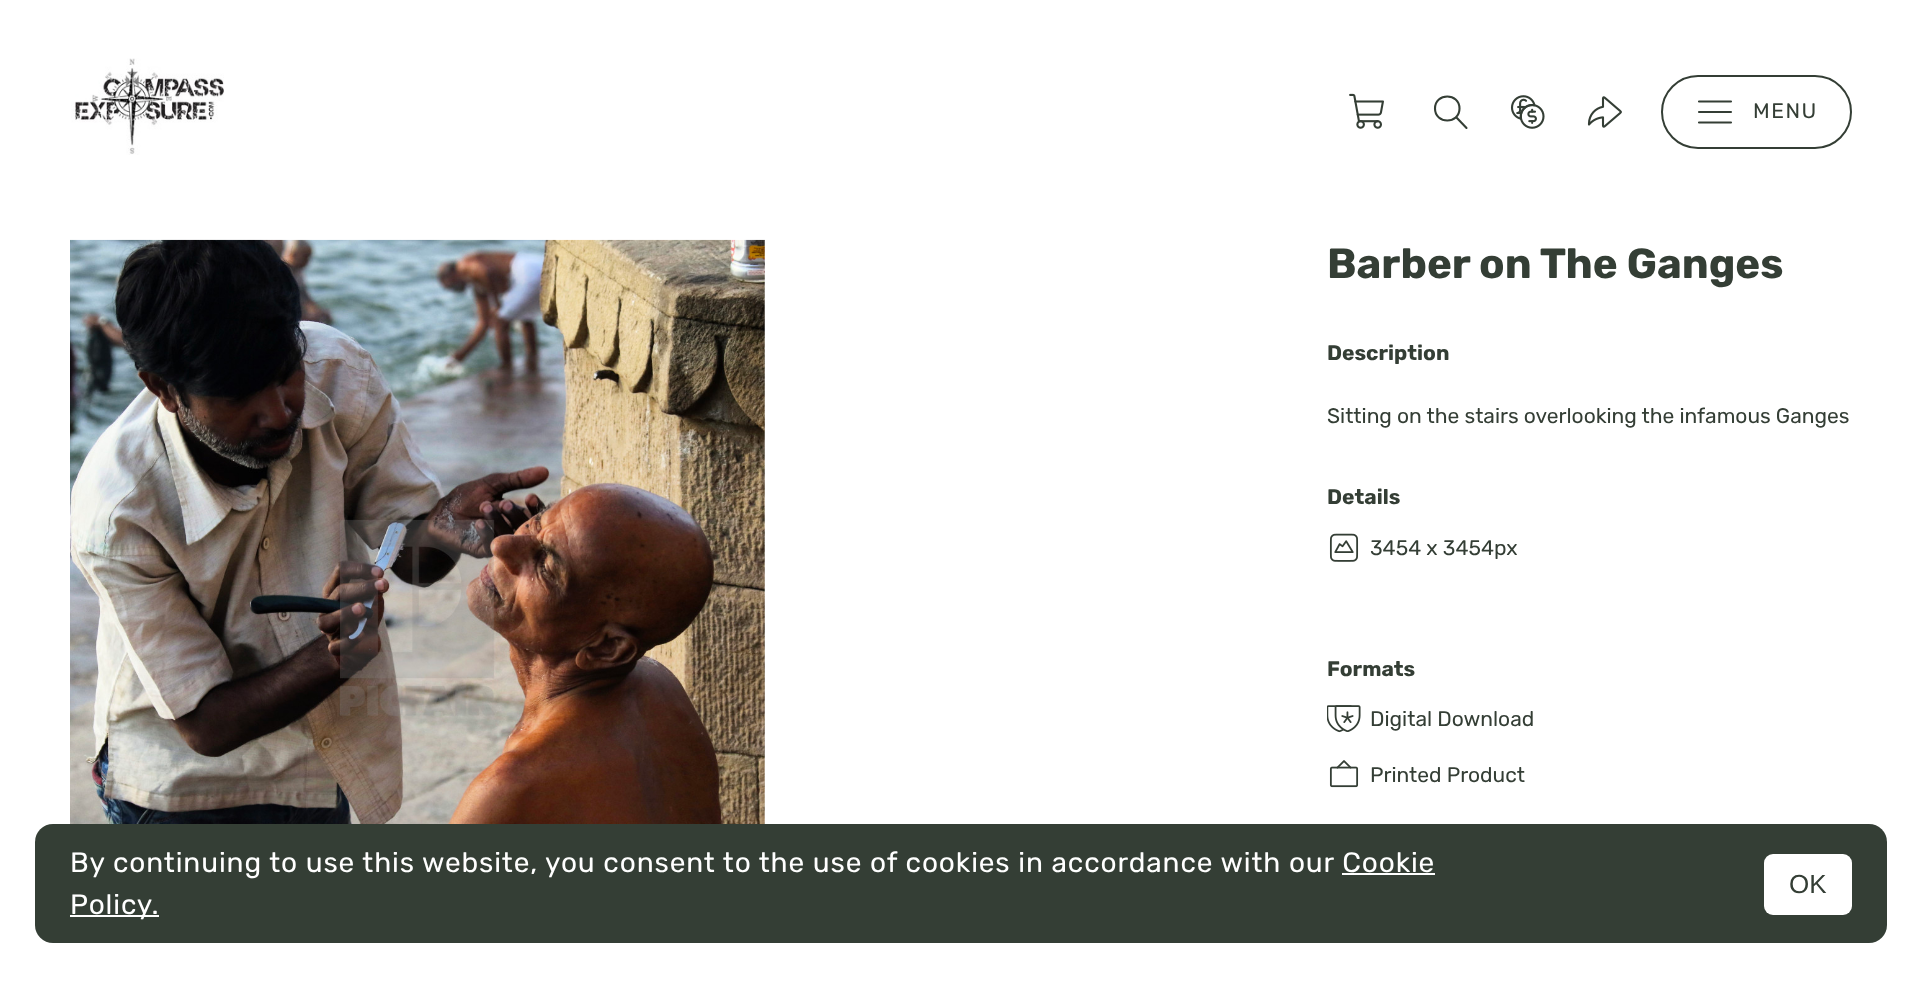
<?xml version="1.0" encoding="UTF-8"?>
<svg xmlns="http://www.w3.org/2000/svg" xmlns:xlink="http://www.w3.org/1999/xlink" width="1920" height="1004">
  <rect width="100%" height="100%" fill="#ffffff" />
  <image x="71" y="58" width="153" height="97" xlink:href="image1.png" />
  <image x="1349" y="93" width="35" height="36" xlink:href="image2.png" />
  <path d="M 1466.5 128 l -10.5 -11 m 3.5 -8.5 c 0 16 -24.5 16 -24.5 0 c 0 -16 24.5 -16 24.5 0 z" fill="none" stroke="#343e35" stroke-width="2.1" stroke-linecap="round" stroke-linejoin="round" />
  <image x="1510" y="95" width="35" height="34" xlink:href="image3.png" />
  <image x="1587" y="96" width="35" height="32" xlink:href="image4.png" />
  <rect x="1662" y="76" width="189" height="72" rx="36" fill="none" stroke="#343e35" stroke-width="2" />
  <path d="M 1699 112 h 32 m -32 -10.5 h 32 m -32 21 h 32" fill="none" stroke="#343e35" stroke-width="2.1" stroke-linecap="round" stroke-linejoin="round" />
  <image x="70" y="239" width="695" height="585" xlink:href="image5.png" />
  <image x="1329" y="533" width="30" height="29" xlink:href="image6.png" />
  <image x="1327" y="705" width="34" height="28" xlink:href="image7.png" />
  <image x="1329" y="760" width="30" height="28" xlink:href="image8.png" />
  <rect x="35" y="824" width="1852" height="119" rx="18" fill="#343e35" />
  <rect x="1342" y="873" width="93" height="2" fill="#ffffff" />
  <rect x="70" y="915" width="89" height="2" fill="#ffffff" />
  <rect x="1764" y="854" width="88" height="61" rx="9" fill="#ffffff" />
  <text x="1753" y="118" style="font-family: Rubik; font-size: 21px; letter-spacing: 1.5px; fill: #343e35">MENU</text>
  <text x="1327" y="278" style="font-family: Rubik; font-size: 42px; font-weight: bold; fill: #343e35">Barber on The Ganges</text>
  <text x="1327" y="360" style="font-family: Rubik; font-size: 21px; font-weight: bold; fill: #343e35">Description</text>
  <text x="1327" y="423" style="font-family: Rubik; font-size: 21px; fill: #343e35">Sitting on the stairs overlooking the infamous Ganges</text>
  <text x="1327" y="504" style="font-family: Rubik; font-size: 21px; font-weight: bold; fill: #343e35">Details</text>
  <text x="1370" y="555" style="font-family: Rubik; font-size: 21px; fill: #343e35">3454 x 3454px</text>
  <text x="1327" y="676" style="font-family: Rubik; font-size: 21px; font-weight: bold; fill: #343e35">Formats</text>
  <text x="1370" y="726" style="font-family: Rubik; font-size: 21px; fill: #343e35">Digital Download</text>
  <text x="1370" y="782" style="font-family: Rubik; font-size: 21px; fill: #343e35">Printed Product</text>
  <text x="70" y="872" style="font-family: Rubik; font-size: 28px; letter-spacing: 0.88px; fill: #ffffff">By continuing to use this website, you consent to the use of cookies in accordance with our Cookie</text>
  <text x="70" y="914" style="font-family: Rubik; font-size: 28px; letter-spacing: 0.88px; fill: #ffffff">Policy.</text>
  <text x="1789" y="893" style="font-family: Liberation Sans; font-size: 26px; fill: #343e35">OK</text>
</svg>
